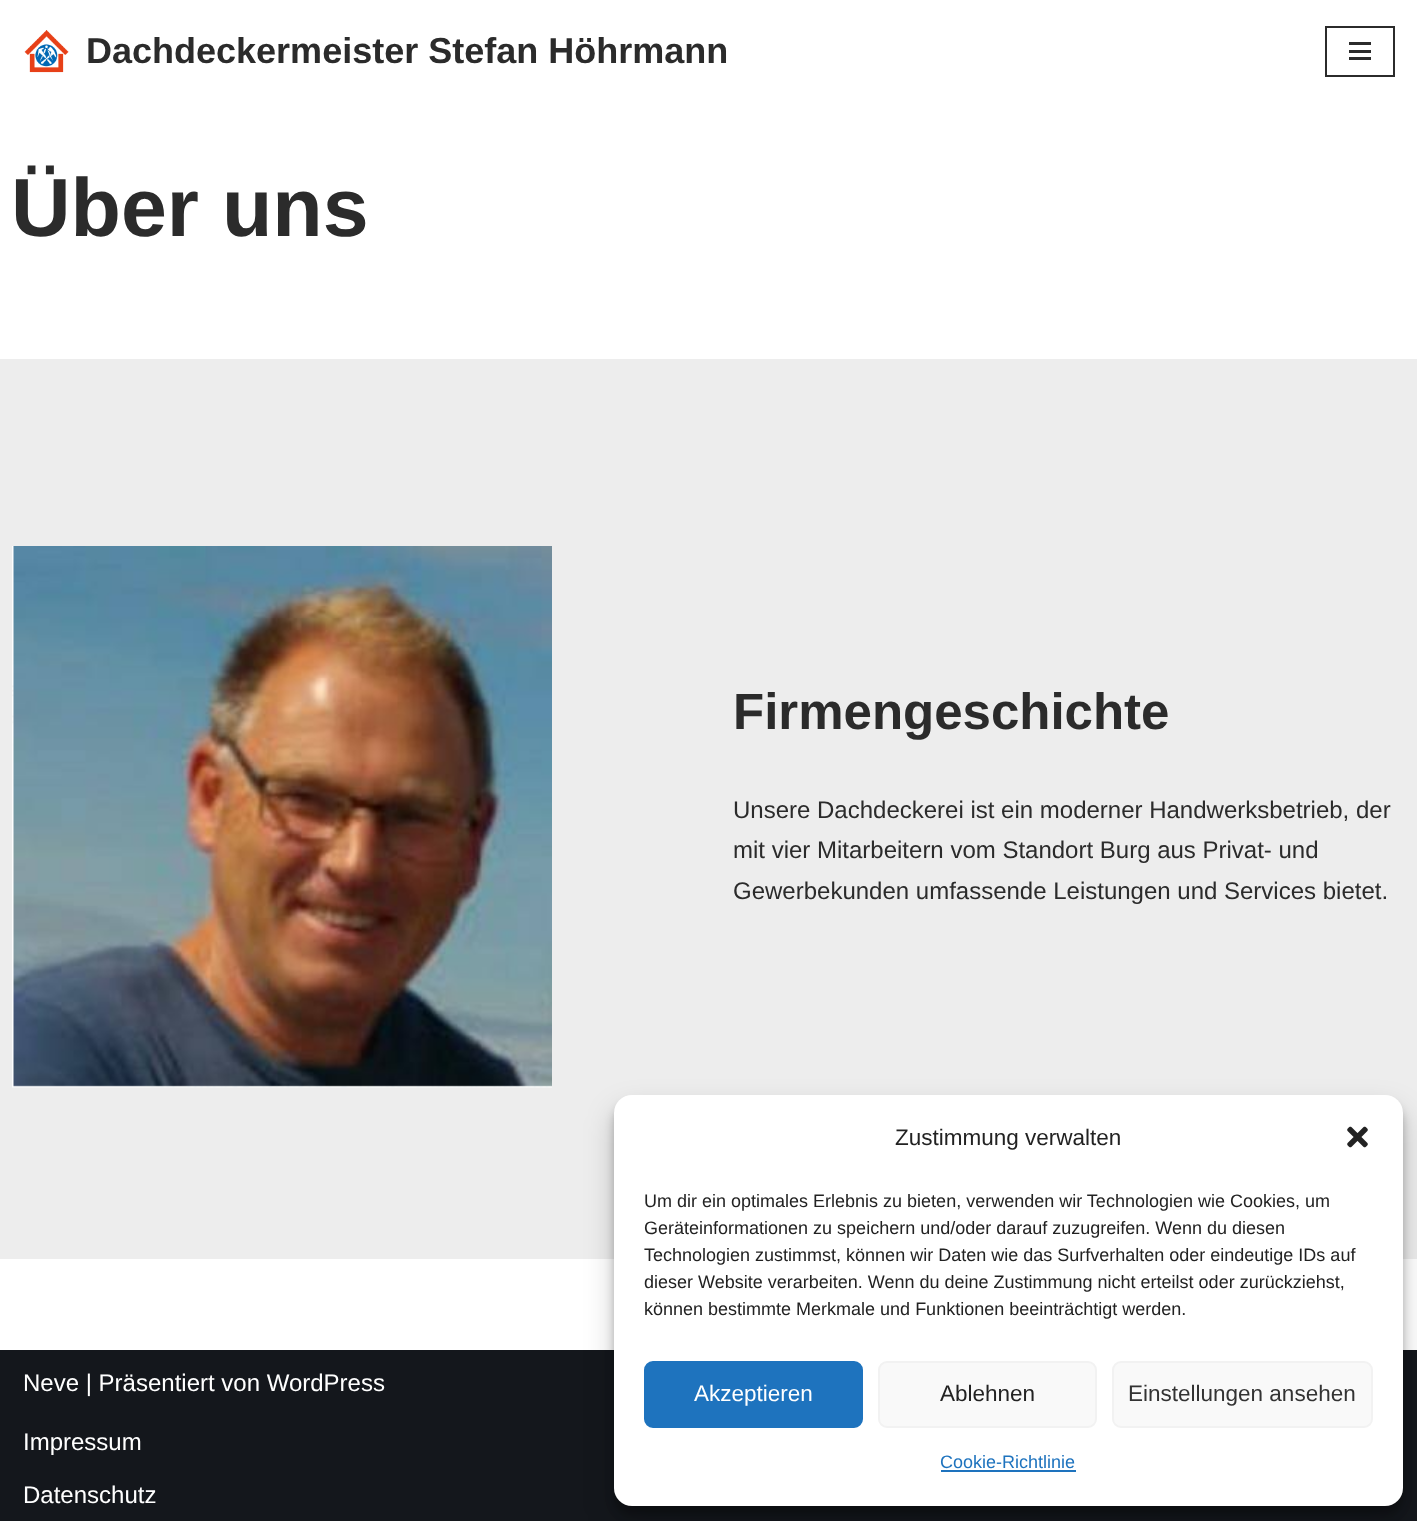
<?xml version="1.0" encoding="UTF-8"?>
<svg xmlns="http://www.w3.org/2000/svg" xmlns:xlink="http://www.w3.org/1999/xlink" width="1417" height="1521">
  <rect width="100%" height="100%" fill="#ffffff" />
  <image x="24" y="30" width="45" height="43" xlink:href="image1.png" />
  <rect x="1326" y="27" width="68" height="49" fill="none" stroke="#2b2b2b" stroke-width="2" />
  <rect x="1349" y="42" width="22" height="3" fill="#2b2b2b" />
  <rect x="1349" y="50" width="22" height="3" fill="#2b2b2b" />
  <rect x="1349" y="57" width="22" height="3" fill="#2b2b2b" />
  <rect y="359" width="1417" height="900" fill="#ededed" />
  <image x="12" y="546" width="540" height="542" xlink:href="image2.png" />
  <rect y="1350" width="1417" height="171" fill="#14171c" />
  <rect x="614" y="1104" width="789" height="411" rx="18" fill="#000000" fill-opacity="0.23" filter="blur(4.5px)" />
  <rect x="614" y="1110" width="789" height="411" rx="18" fill="#000000" fill-opacity="0.19" filter="blur(15px)" />
  <rect x="614" y="1095" width="789" height="411" rx="18" fill="#ffffff" />
  <image x="1347" y="1126" width="21" height="22" xlink:href="image3.png" />
  <rect x="645" y="1362" width="217" height="65" rx="8" fill="#1e73be" stroke="#1e73be" stroke-width="2" />
  <rect x="879" y="1362" width="217" height="65" rx="8" fill="#f9f9f9" stroke="#f2f2f2" stroke-width="2" />
  <rect x="1113" y="1362" width="259" height="65" rx="8" fill="#f9f9f9" stroke="#f2f2f2" stroke-width="2" />
  <rect x="941" y="1470" width="135" height="2" fill="#1e73be" />
  <text x="86" y="63" style="font-family: Liberation Sans; font-size: 36px; font-weight: bold; fill: #2b2b2b">Dachdeckermeister Stefan Höhrmann</text>
  <text x="11" y="236" style="font-family: Liberation Sans; font-size: 82.5px; font-weight: bold; fill: #2b2b2b">Über uns</text>
  <text x="733" y="729" style="font-family: Liberation Sans; font-size: 51px; font-weight: bold; fill: #2b2b2b">Firmengeschichte</text>
  <text x="733" y="818" style="font-family: Liberation Sans; font-size: 24px; fill: #2b2b2b">Unsere Dachdeckerei ist ein moderner Handwerksbetrieb, der</text>
  <text x="733" y="858" style="font-family: Liberation Sans; font-size: 24px; fill: #2b2b2b">mit vier Mitarbeitern vom Standort Burg aus Privat- und</text>
  <text x="733" y="899" style="font-family: Liberation Sans; font-size: 24px; fill: #2b2b2b">Gewerbekunden umfassende Leistungen und Services bietet.</text>
  <text x="23" y="1391" style="font-family: Liberation Sans; font-size: 24px; fill: #ffffff">Neve | Präsentiert von WordPress</text>
  <text x="23" y="1450" style="font-family: Liberation Sans; font-size: 24px; fill: #ffffff">Impressum</text>
  <text x="23" y="1503" style="font-family: Liberation Sans; font-size: 24px; fill: #ffffff">Datenschutz</text>
  <text x="895" y="1145" style="font-family: Liberation Sans; font-size: 22.5px; fill: #222222">Zustimmung verwalten</text>
  <text x="644" y="1207" style="font-family: Liberation Sans; font-size: 18px; fill: #222222">Um dir ein optimales Erlebnis zu bieten, verwenden wir Technologien wie Cookies, um</text>
  <text x="644" y="1234" style="font-family: Liberation Sans; font-size: 18px; fill: #222222">Geräteinformationen zu speichern und/oder darauf zuzugreifen. Wenn du diesen</text>
  <text x="644" y="1261" style="font-family: Liberation Sans; font-size: 18px; fill: #222222">Technologien zustimmst, können wir Daten wie das Surfverhalten oder eindeutige IDs auf</text>
  <text x="644" y="1288" style="font-family: Liberation Sans; font-size: 18px; fill: #222222">dieser Website verarbeiten. Wenn du deine Zustimmung nicht erteilst oder zurückziehst,</text>
  <text x="644" y="1315" style="font-family: Liberation Sans; font-size: 18px; fill: #222222">können bestimmte Merkmale und Funktionen beeinträchtigt werden.</text>
  <text x="694" y="1401" style="font-family: Liberation Sans; font-size: 22.5px; fill: #ffffff">Akzeptieren</text>
  <text x="940" y="1401" style="font-family: Liberation Sans; font-size: 22.5px; fill: #222222">Ablehnen</text>
  <text x="1128" y="1401" style="font-family: Liberation Sans; font-size: 22.5px; fill: #333333">Einstellungen ansehen</text>
  <text x="940" y="1468" style="font-family: Liberation Sans; font-size: 18px; fill: #1e73be">Cookie-Richtlinie</text>
</svg>
